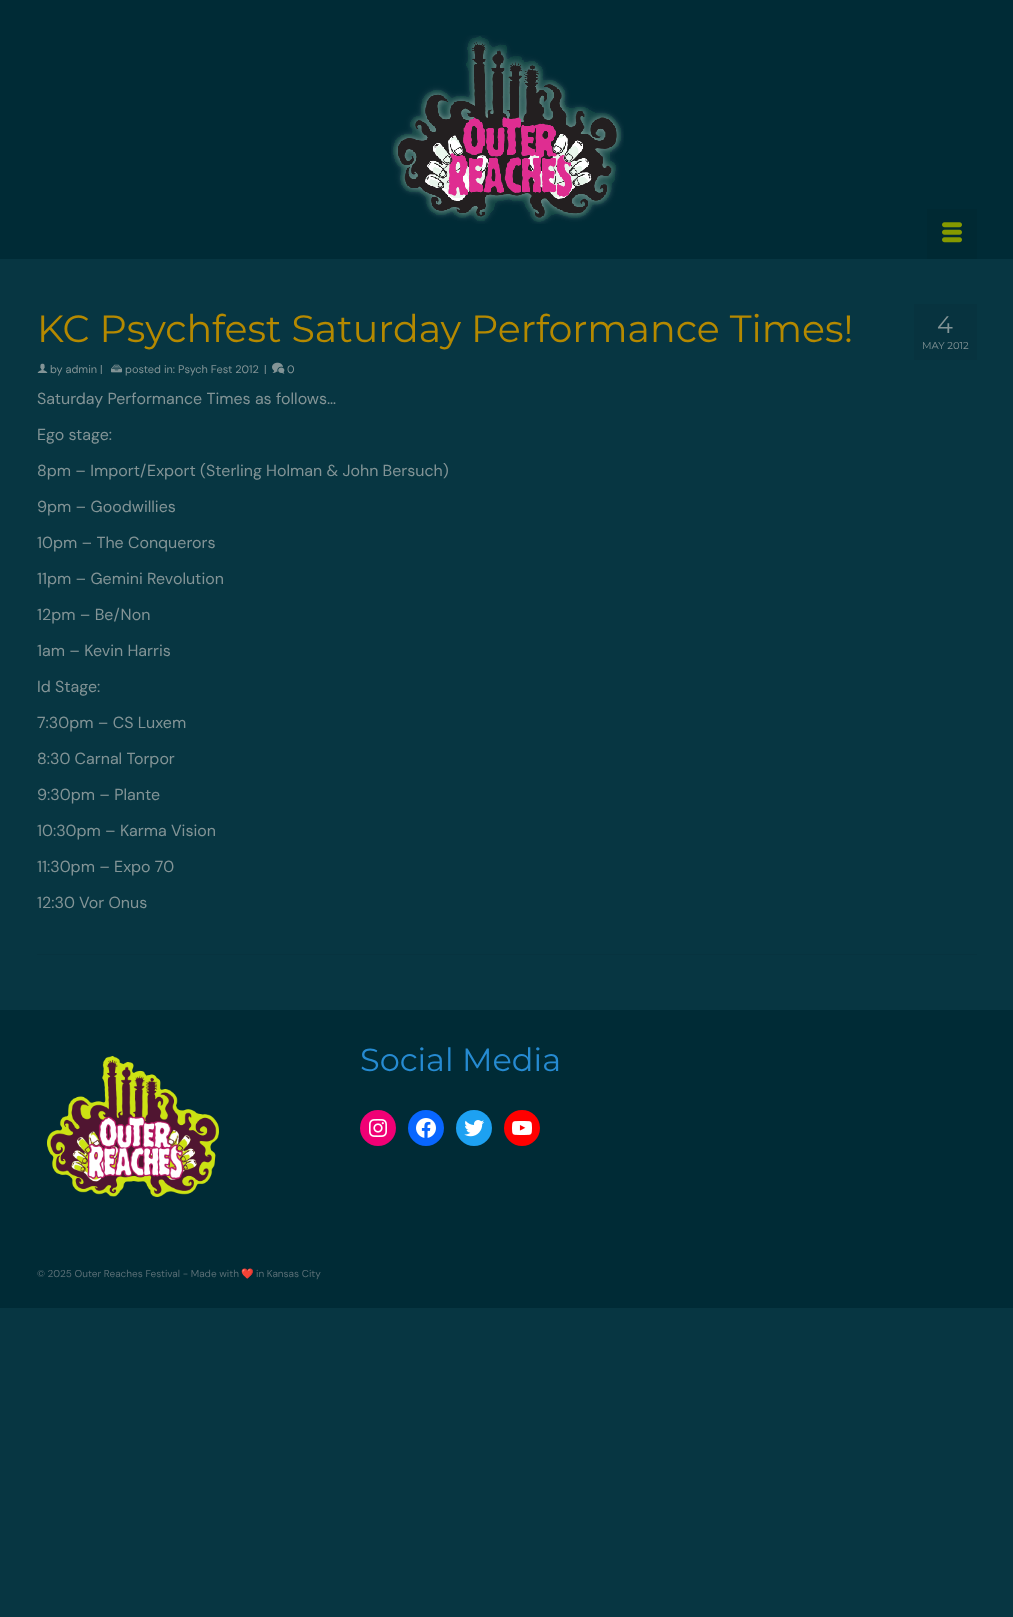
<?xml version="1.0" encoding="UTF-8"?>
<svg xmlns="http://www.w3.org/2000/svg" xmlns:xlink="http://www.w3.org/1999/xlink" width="1013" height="1617">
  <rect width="100%" height="100%" fill="#073642" />
  <rect width="1013" height="259" fill="#002b36" />
  <image x="391" y="35" width="233" height="189" xlink:href="image1.png" />
  <rect x="927" y="209" width="50" height="50" fill="#002933" />
  <image x="942" y="222" width="20" height="21" xlink:href="image2.png" />
  <image x="37" y="363" width="11" height="10" xlink:href="image3.png" />
  <image x="111" y="364" width="11" height="9" xlink:href="image4.png" />
  <image x="272" y="362" width="13" height="12" xlink:href="image5.png" />
  <rect x="914" y="304" width="63" height="56" fill="#07333f" />
  <rect x="37" y="954" width="940" height="1" fill="#07333f" />
  <rect y="1010" width="1013" height="298" fill="#002b36" />
  <image x="47" y="1056" width="172" height="141" xlink:href="image6.png" />
  <circle cx="378" cy="1128" r="18" fill="#f00075" />
  <image x="369" y="1119" width="18" height="18" xlink:href="image7.png" />
  <circle cx="426" cy="1128" r="18" fill="#0866ff" />
  <image x="416" y="1118" width="20" height="20" xlink:href="image8.png" />
  <circle cx="474" cy="1128" r="18" fill="#1da1f2" />
  <image x="464" y="1120" width="20" height="17" xlink:href="image9.png" />
  <circle cx="522" cy="1128" r="18" fill="#ff0000" />
  <image x="512" y="1121" width="20" height="14" xlink:href="image10.png" />
  <text x="37" y="342" style="font-family: Montserrat; font-size: 38px; font-weight: 100; fill: #b58900">KC Psychfest Saturday Performance Times!</text>
  <text x="50" y="373" style="font-family: DM Sans; font-size: 11px; fill: #839496">by admin |</text>
  <text x="125" y="373" style="font-family: DM Sans; font-size: 11px; fill: #839496">posted in: Psych Fest 2012</text>
  <text x="264" y="373" style="font-family: DM Sans; font-size: 11px; fill: #839496">|</text>
  <text x="287" y="373" style="font-family: DM Sans; font-size: 11px; fill: #839496">0</text>
  <text x="937" y="333" style="font-family: Montserrat; font-size: 24px; font-weight: 100; fill: #839496">4</text>
  <text x="922" y="349" style="font-family: Montserrat; font-size: 10px; font-weight: 100; fill: #839496">MAY 2012</text>
  <text x="37" y="404" style="font-family: DM Sans; font-size: 16px; fill: #839496">Saturday Performance Times as follows…</text>
  <text x="37" y="440" style="font-family: DM Sans; font-size: 16px; fill: #839496">Ego stage:</text>
  <text x="37" y="476" style="font-family: DM Sans; font-size: 16px; fill: #839496">8pm – Import/Export (Sterling Holman &amp; John Bersuch)</text>
  <text x="37" y="512" style="font-family: DM Sans; font-size: 16px; fill: #839496">9pm – Goodwillies</text>
  <text x="37" y="548" style="font-family: DM Sans; font-size: 16px; fill: #839496">10pm – The Conquerors</text>
  <text x="37" y="584" style="font-family: DM Sans; font-size: 16px; fill: #839496">11pm – Gemini Revolution</text>
  <text x="37" y="620" style="font-family: DM Sans; font-size: 16px; fill: #839496">12pm – Be/Non</text>
  <text x="37" y="656" style="font-family: DM Sans; font-size: 16px; fill: #839496">1am – Kevin Harris</text>
  <text x="37" y="692" style="font-family: DM Sans; font-size: 16px; fill: #839496">Id Stage:</text>
  <text x="37" y="728" style="font-family: DM Sans; font-size: 16px; fill: #839496">7:30pm – CS Luxem</text>
  <text x="37" y="764" style="font-family: DM Sans; font-size: 16px; fill: #839496">8:30 Carnal Torpor</text>
  <text x="37" y="800" style="font-family: DM Sans; font-size: 16px; fill: #839496">9:30pm – Plante</text>
  <text x="37" y="836" style="font-family: DM Sans; font-size: 16px; fill: #839496">10:30pm – Karma Vision</text>
  <text x="37" y="872" style="font-family: DM Sans; font-size: 16px; fill: #839496">11:30pm – Expo 70</text>
  <text x="37" y="908" style="font-family: DM Sans; font-size: 16px; fill: #839496">12:30 Vor Onus</text>
  <text x="360" y="1071" style="font-family: Montserrat; font-size: 32px; font-weight: 100; fill: #268bd2">Social Media</text>
  <text x="37" y="1277" style="font-family: DM Sans; font-size: 10px; fill: #586e75">© 2025 Outer Reaches Festival - Made with</text>
  <text x="241" y="1277" style="font-family: Noto Color Emoji; font-size: 10px; fill: #586e75">❤️</text>
  <text x="256" y="1277" style="font-family: DM Sans; font-size: 10px; fill: #586e75">in Kansas City</text>
</svg>
